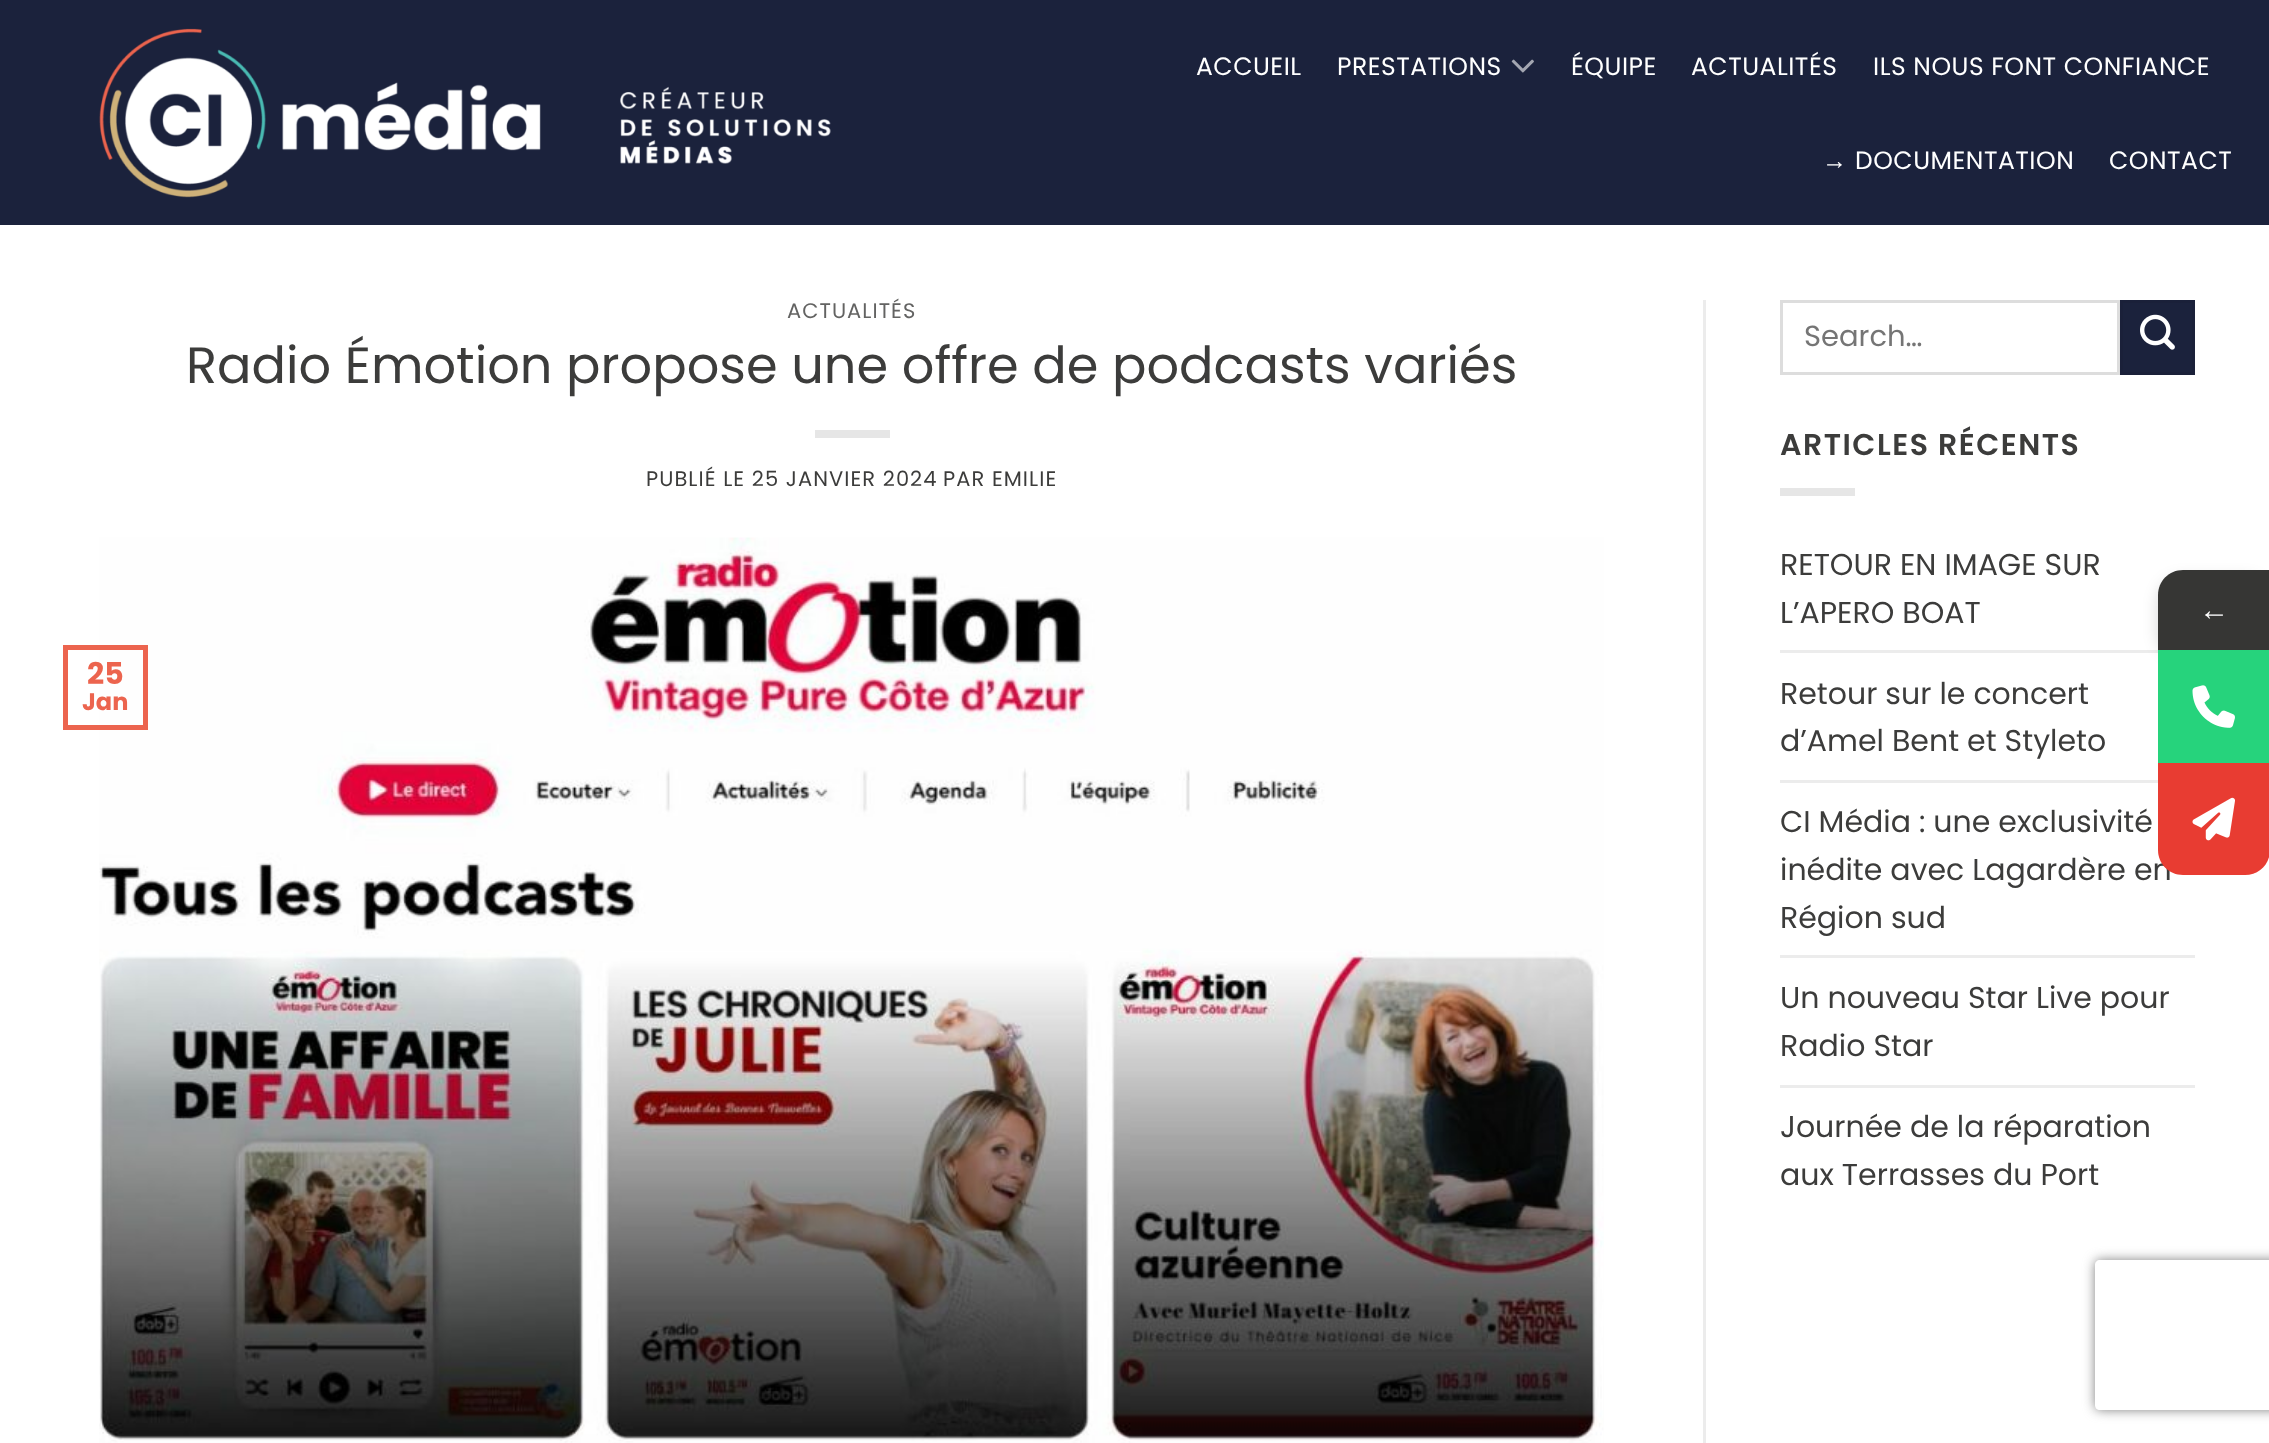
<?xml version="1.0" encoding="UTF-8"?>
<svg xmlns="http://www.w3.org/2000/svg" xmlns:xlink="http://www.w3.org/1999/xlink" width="2269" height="1443">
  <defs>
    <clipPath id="clip1"><path d="M 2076 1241 h 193 v 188 h -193 z m 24 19 h 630 c 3 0 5 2 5 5 v 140 c 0 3 -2 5 -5 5 h -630 c -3 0 -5 -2 -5 -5 v -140 c 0 -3 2 -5 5 -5 z" clip-rule="evenodd" /></clipPath>
  </defs>
  <rect width="100%" height="100%" fill="#ffffff" />
  <rect width="2269" height="225" fill="#1b223c" />
  <image x="99" y="28" width="732" height="170" xlink:href="image1.png" />
  <image x="1511" y="59" width="23" height="14" xlink:href="image2.png" />
  <rect x="815" y="430" width="75" height="8" fill="#e6e6e6" />
  <image x="99" y="537" width="1505" height="906" xlink:href="image3.png" />
  <rect x="65.5" y="647.5" width="80" height="80" fill="none" stroke="#ec644e" stroke-width="5" />
  <rect x="1703" y="300" width="3" height="1143" fill="#ececec" />
  <rect x="1781.5" y="301.5" width="337" height="72" fill="none" stroke="#dddddd" stroke-width="3" />
  <rect x="2121.5" y="301.5" width="72" height="72" fill="#1b223c" stroke="#1a2039" stroke-width="3" />
  <image x="2140" y="314" width="35" height="36" xlink:href="image4.png" />
  <rect x="1780" y="488" width="75" height="8" fill="#e6e6e6" />
  <rect x="1780" y="650" width="378" height="3" fill="#ececec" />
  <rect x="1780" y="780" width="378" height="3" fill="#ececec" />
  <rect x="1780" y="955" width="415" height="3" fill="#ececec" />
  <rect x="1780" y="1085" width="415" height="3" fill="#ececec" />
  <rect x="2158" y="578" width="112" height="80" rx="25" fill="#000000" fill-opacity="0.16" filter="blur(7.5px)" />
  <path d="M 2183 570 h 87 v 80 h -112 v -55 c 0 -14 11 -25 25 -25 z" fill="#363634" />
  <rect x="2158" y="650" width="111" height="113" fill="#26d37c" />
  <image x="2192" y="685" width="43" height="43" xlink:href="image5.png" />
  <g clip-path="url(#clip1)">
    <rect x="2095" y="1260" width="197" height="150" rx="5" fill="#808080" filter="blur(6px)" />
  </g>
  <text x="1196" y="75" style="font-family: Poppins; font-size: 25px; letter-spacing: 0.5px; fill: #ffffff">ACCUEIL</text>
  <text x="1337" y="75" style="font-family: Poppins; font-size: 25px; letter-spacing: 0.5px; fill: #ffffff">PRESTATIONS</text>
  <text x="1571" y="75" style="font-family: Poppins; font-size: 25px; letter-spacing: 0.5px; fill: #ffffff">ÉQUIPE</text>
  <text x="1691" y="75" style="font-family: Poppins; font-size: 25px; letter-spacing: 0.5px; fill: #ffffff">ACTUALITÉS</text>
  <text x="1873" y="75" style="font-family: Poppins; font-size: 25px; letter-spacing: 0.5px; fill: #ffffff">ILS NOUS FONT CONFIANCE</text>
  <text x="1822" y="169" style="font-family: Liberation Sans; font-size: 25px; letter-spacing: 0.5px; fill: #ffffff">→</text>
  <text x="1855" y="169" style="font-family: Poppins; font-size: 25px; letter-spacing: 0.5px; fill: #ffffff">DOCUMENTATION</text>
  <text x="2109" y="169" style="font-family: Poppins; font-size: 25px; letter-spacing: 0.5px; fill: #ffffff">CONTACT</text>
  <text x="787" y="318" style="font-family: Poppins; font-size: 21px; letter-spacing: 1.05px; fill: #636362">ACTUALITÉS</text>
  <text x="186" y="383" style="font-family: Poppins; font-size: 51px; fill: #3c3c3b">Radio Émotion propose une offre de podcasts variés</text>
  <text x="646" y="486" style="font-family: Poppins; font-size: 21px; letter-spacing: 1.05px; fill: #3c3c3b">PUBLIÉ LE 25 JANVIER 2024</text>
  <text x="943" y="486" style="font-family: Poppins; font-size: 21px; letter-spacing: 1.05px; fill: #3c3c3b">PAR EMILIE</text>
  <text x="87" y="684" style="font-family: Poppins; font-size: 30px; font-weight: bold; fill: #ec644e">25</text>
  <text x="82" y="710" style="font-family: Poppins; font-size: 24px; font-weight: bold; fill: #ec644e">Jan</text>
  <text x="1804" y="346" style="font-family: Poppins; font-size: 29px; fill: #757575">Search…</text>
  <text x="1780" y="455" style="font-family: Poppins; font-size: 30px; font-weight: 600; letter-spacing: 1.5px; fill: #3c3c3b">ARTICLES RÉCENTS</text>
  <text x="1780" y="575" style="font-family: Poppins; font-size: 30px; fill: #3c3c3b">RETOUR EN IMAGE SUR</text>
  <text x="1780" y="623" style="font-family: Poppins; font-size: 30px; fill: #3c3c3b">L’APERO BOAT</text>
  <text x="1780" y="704" style="font-family: Poppins; font-size: 30px; fill: #3c3c3b">Retour sur le concert</text>
  <text x="1780" y="751" style="font-family: Poppins; font-size: 30px; fill: #3c3c3b">d’Amel Bent et Styleto</text>
  <text x="1780" y="832" style="font-family: Poppins; font-size: 30px; fill: #3c3c3b">CI Média : une exclusivité</text>
  <text x="1780" y="880" style="font-family: Poppins; font-size: 30px; fill: #3c3c3b">inédite avec Lagardère en</text>
  <text x="1780" y="928" style="font-family: Poppins; font-size: 30px; fill: #3c3c3b">Région sud</text>
  <text x="1780" y="1008" style="font-family: Poppins; font-size: 30px; fill: #3c3c3b">Un nouveau Star Live pour</text>
  <text x="1780" y="1056" style="font-family: Poppins; font-size: 30px; fill: #3c3c3b">Radio Star</text>
  <text x="1780" y="1137" style="font-family: Poppins; font-size: 30px; fill: #3c3c3b">Journée de la réparation</text>
  <text x="1780" y="1185" style="font-family: Poppins; font-size: 30px; fill: #3c3c3b">aux Terrasses du Port</text>
  <text x="2199" y="620" style="font-family: Liberation Serif; font-size: 30px; fill: #ffffff">←</text>
  <path d="M 2158 763 h 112 v 87 c 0 14 -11 25 -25 25 h -62 c -14 0 -25 -11 -25 -25 z" fill="#e83c32" />
  <image x="2192" y="797" width="43" height="44" xlink:href="image6.png" />
</svg>
